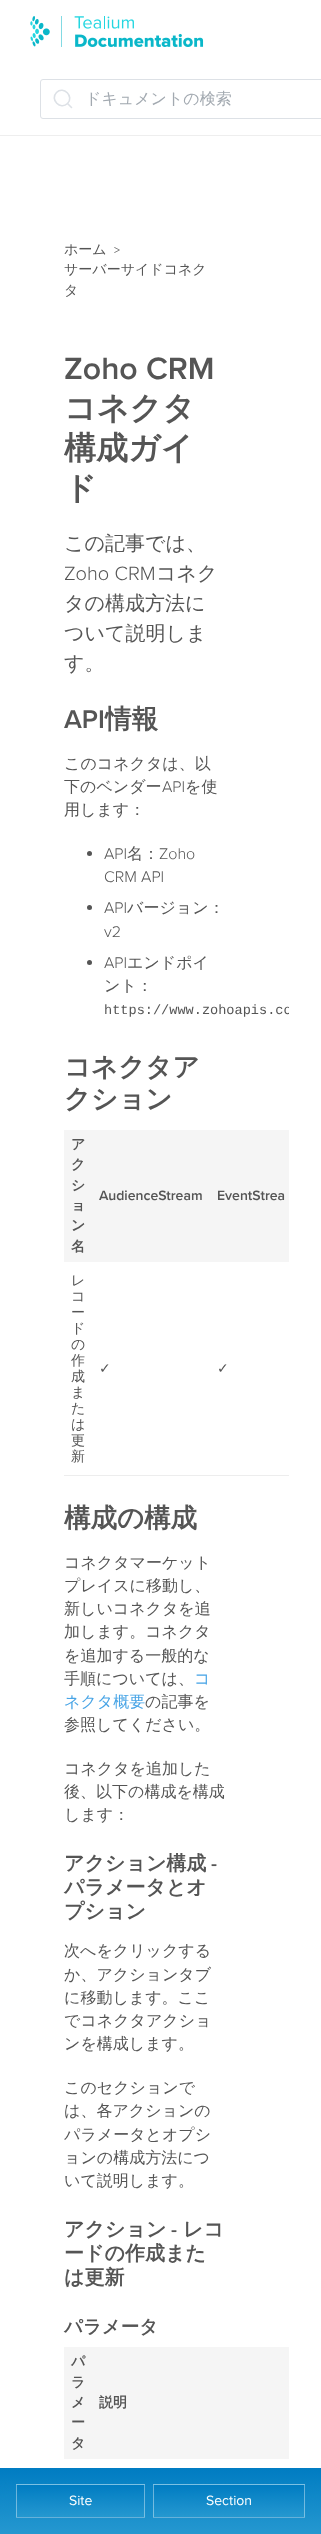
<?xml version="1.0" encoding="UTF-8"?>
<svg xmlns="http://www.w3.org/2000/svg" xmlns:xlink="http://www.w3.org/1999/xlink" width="321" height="2534">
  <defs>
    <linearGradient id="g1" gradientUnits="userSpaceOnUse" x1="161" y1="2468" x2="161" y2="2534"><stop offset="0" stop-color="#007cc2" /><stop offset="1" stop-color="#2598d0" /></linearGradient>
    <linearGradient id="g2" gradientUnits="userSpaceOnUse" x1="81" y1="2453" x2="81" y2="2485"><stop offset="0" stop-color="#007cc2" /><stop offset="1" stop-color="#2598d0" /></linearGradient>
    <linearGradient id="g3" gradientUnits="userSpaceOnUse" x1="81" y1="2485" x2="81" y2="2517"><stop offset="0" stop-color="#007cc2" /><stop offset="1" stop-color="#2598d0" /></linearGradient>
    <linearGradient id="g4" gradientUnits="userSpaceOnUse" x1="81" y1="2517" x2="81" y2="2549"><stop offset="0" stop-color="#007cc2" /><stop offset="1" stop-color="#2598d0" /></linearGradient>
    <linearGradient id="g5" gradientUnits="userSpaceOnUse" x1="229" y1="2453" x2="229" y2="2485"><stop offset="0" stop-color="#007cc2" /><stop offset="1" stop-color="#2598d0" /></linearGradient>
    <linearGradient id="g6" gradientUnits="userSpaceOnUse" x1="229" y1="2485" x2="229" y2="2517"><stop offset="0" stop-color="#007cc2" /><stop offset="1" stop-color="#2598d0" /></linearGradient>
    <linearGradient id="g7" gradientUnits="userSpaceOnUse" x1="229" y1="2517" x2="229" y2="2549"><stop offset="0" stop-color="#007cc2" /><stop offset="1" stop-color="#2598d0" /></linearGradient>
    <clipPath id="clip1"><rect y="208" width="289" height="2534" /></clipPath>
  </defs>
  <rect width="100%" height="100%" fill="#ffffff" />
  <rect y="135" width="321" height="1" fill="#eeeeee" />
  <image x="30" y="16" width="174" height="31" xlink:href="image1.png" />
  <rect x="40.5" y="79.5" width="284" height="39" rx="2.5" fill="none" stroke="#dde1e6" />
  <path d="M 67.5 103.5 l 4 4 l -4 -4 c -7 7 -18 -4 -11 -11 c 7 -7 18 4 11 11 z" fill="none" stroke="#dde1e6" stroke-width="1.6" stroke-linecap="round" stroke-linejoin="round" />
  <circle cx="89.5" cy="853.5" r="2.5" fill="#555555" />
  <circle cx="89.5" cy="907.5" r="2.5" fill="#555555" />
  <circle cx="89.5" cy="962.5" r="2.5" fill="#555555" />
  <rect x="64" y="1130" width="225" height="132" fill="#f5f5f5" />
  <rect x="64" y="1475" width="225" height="1" fill="#ededed" />
  <rect x="64" y="2347" width="225" height="112" fill="#f5f5f5" />
  <rect y="2468" width="321" height="66" fill="url(#g1)" />
  <rect x="16" y="2484" width="129" height="1" fill="url(#g2)" />
  <rect x="16" y="2485" width="129" height="32" fill="url(#g3)" />
  <rect x="16" y="2517" width="129" height="1" fill="url(#g4)" />
  <rect x="16.5" y="2484.5" width="128" height="33" fill="none" stroke="#ffffff" stroke-opacity="0.4" />
  <rect x="153" y="2484" width="152" height="1" fill="url(#g5)" />
  <rect x="153" y="2485" width="152" height="32" fill="url(#g6)" />
  <rect x="153" y="2517" width="152" height="1" fill="url(#g7)" />
  <rect x="153.5" y="2484.5" width="151" height="33" fill="none" stroke="#ffffff" stroke-opacity="0.4" />
  <text x="85" y="104" style="font-family: WenQuanYi Zen Hei; font-size: 16px; font-weight: 500; fill: #a2a9b0">ドキュメントの検索</text>
  <text x="64" y="254" style="font-family: WenQuanYi Zen Hei; font-size: 14px; font-weight: 500; fill: #555555">ホーム</text>
  <text x="114" y="254" style="font-family: Proxima Nova; font-size: 12px; fill: #555555">&gt;</text>
  <text x="64" y="274" style="font-family: WenQuanYi Zen Hei; font-size: 14px; font-weight: 500; fill: #555555">サーバーサイドコネク</text>
  <text x="64" y="295" style="font-family: WenQuanYi Zen Hei; font-size: 14px; font-weight: 500; fill: #555555">タ</text>
  <text x="64" y="379" style="font-family: Proxima Nova; font-size: 32px; font-weight: 600; fill: #555555">Zoho CRM</text>
  <text x="64" y="419" style="font-family: WenQuanYi Zen Hei; font-size: 32px; font-weight: bold; fill: #555555">コネクタ</text>
  <text x="64" y="459" style="font-family: WenQuanYi Zen Hei; font-size: 32px; font-weight: bold; fill: #555555">構成ガイ</text>
  <text x="64" y="499" style="font-family: WenQuanYi Zen Hei; font-size: 32px; font-weight: bold; fill: #555555">ド</text>
  <text x="64" y="550" style="font-family: WenQuanYi Zen Hei; font-size: 20px; font-weight: 500; fill: #555555">この記事では、</text>
  <text x="64" y="580" style="font-family: Proxima Nova; font-size: 20px; font-weight: 300; fill: #555555">Zoho CRM</text>
  <text x="156" y="580" style="font-family: WenQuanYi Zen Hei; font-size: 20px; font-weight: 500; fill: #555555">コネク</text>
  <text x="64" y="610" style="font-family: WenQuanYi Zen Hei; font-size: 20px; font-weight: 500; fill: #555555">タの構成方法に</text>
  <text x="64" y="640" style="font-family: WenQuanYi Zen Hei; font-size: 20px; font-weight: 500; fill: #555555">ついて説明しま</text>
  <text x="64" y="670" style="font-family: WenQuanYi Zen Hei; font-size: 20px; font-weight: 500; fill: #555555">す。</text>
  <text x="64" y="728" style="font-family: Proxima Nova; font-size: 26.5px; font-weight: 600; fill: #555555">API</text>
  <text x="105" y="728" style="font-family: WenQuanYi Zen Hei; font-size: 26.5px; font-weight: bold; fill: #555555">情報</text>
  <text x="64" y="769" style="font-family: WenQuanYi Zen Hei; font-size: 16px; font-weight: 500; fill: #555555">このコネクタは、以</text>
  <text x="64" y="792" style="font-family: WenQuanYi Zen Hei; font-size: 16px; font-weight: 500; fill: #555555">下のベンダー</text>
  <text x="162" y="792" style="font-family: Proxima Nova; font-size: 16px; font-weight: 300; fill: #555555">API</text>
  <text x="185" y="792" style="font-family: WenQuanYi Zen Hei; font-size: 16px; font-weight: 500; fill: #555555">を使</text>
  <text x="64" y="815" style="font-family: WenQuanYi Zen Hei; font-size: 16px; font-weight: 500; fill: #555555">用します：</text>
  <text x="104" y="859" style="font-family: Proxima Nova; font-size: 16px; font-weight: 300; fill: #555555">API</text>
  <text x="127" y="859" style="font-family: WenQuanYi Zen Hei; font-size: 16px; font-weight: 500; fill: #555555">名：</text>
  <text x="159" y="859" style="font-family: Proxima Nova; font-size: 16px; font-weight: 300; fill: #555555">Zoho</text>
  <text x="104" y="882" style="font-family: Proxima Nova; font-size: 16px; font-weight: 300; fill: #555555">CRM API</text>
  <text x="104" y="913" style="font-family: Proxima Nova; font-size: 16px; font-weight: 300; fill: #555555">API</text>
  <text x="127" y="913" style="font-family: WenQuanYi Zen Hei; font-size: 16px; font-weight: 500; fill: #555555">バージョン：</text>
  <text x="104" y="937" style="font-family: Proxima Nova; font-size: 16px; font-weight: 300; fill: #555555">v2</text>
  <text x="104" y="968" style="font-family: Proxima Nova; font-size: 16px; font-weight: 300; fill: #555555">API</text>
  <text x="127" y="968" style="font-family: WenQuanYi Zen Hei; font-size: 16px; font-weight: 500; fill: #555555">エンドポイ</text>
  <text x="104" y="991" style="font-family: WenQuanYi Zen Hei; font-size: 16px; font-weight: 500; fill: #555555">ント：</text>
  <g clip-path="url(#clip1)">
    <text x="104" y="1014" style="font-family: Liberation Mono; font-size: 13.6px; fill: #555555">https://www.zohoapis.co</text>
  </g>
  <text x="64" y="1076" style="font-family: WenQuanYi Zen Hei; font-size: 26.5px; font-weight: bold; fill: #555555">コネクタア</text>
  <text x="64" y="1108" style="font-family: WenQuanYi Zen Hei; font-size: 26.5px; font-weight: bold; fill: #555555">クション</text>
  <text x="71" y="1149" style="font-family: WenQuanYi Zen Hei; font-size: 14px; font-weight: bold; fill: #555555">ア</text>
  <text x="71" y="1169" style="font-family: WenQuanYi Zen Hei; font-size: 14px; font-weight: bold; fill: #555555">ク</text>
  <text x="71" y="1190" style="font-family: WenQuanYi Zen Hei; font-size: 14px; font-weight: bold; fill: #555555">シ</text>
  <text x="71" y="1210" style="font-family: WenQuanYi Zen Hei; font-size: 14px; font-weight: bold; fill: #555555">ョ</text>
  <text x="71" y="1230" style="font-family: WenQuanYi Zen Hei; font-size: 14px; font-weight: bold; fill: #555555">ン</text>
  <text x="71" y="1251" style="font-family: WenQuanYi Zen Hei; font-size: 14px; font-weight: bold; fill: #555555">名</text>
  <text x="99" y="1200" style="font-family: Proxima Nova; font-size: 14px; font-weight: 600; fill: #555555">AudienceStream</text>
  <text x="217" y="1200" style="font-family: Proxima Nova; font-size: 14px; font-weight: 600; fill: #555555">EventStrea</text>
  <text x="71" y="1285" style="font-family: WenQuanYi Zen Hei; font-size: 14px; font-weight: 500; fill: #555555">レ</text>
  <text x="71" y="1301" style="font-family: WenQuanYi Zen Hei; font-size: 14px; font-weight: 500; fill: #555555">コ</text>
  <text x="71" y="1317" style="font-family: WenQuanYi Zen Hei; font-size: 14px; font-weight: 500; fill: #555555">ー</text>
  <text x="71" y="1333" style="font-family: WenQuanYi Zen Hei; font-size: 14px; font-weight: 500; fill: #555555">ド</text>
  <text x="71" y="1349" style="font-family: WenQuanYi Zen Hei; font-size: 14px; font-weight: 500; fill: #555555">の</text>
  <text x="71" y="1365" style="font-family: WenQuanYi Zen Hei; font-size: 14px; font-weight: 500; fill: #555555">作</text>
  <text x="71" y="1381" style="font-family: WenQuanYi Zen Hei; font-size: 14px; font-weight: 500; fill: #555555">成</text>
  <text x="71" y="1397" style="font-family: WenQuanYi Zen Hei; font-size: 14px; font-weight: 500; fill: #555555">ま</text>
  <text x="71" y="1413" style="font-family: WenQuanYi Zen Hei; font-size: 14px; font-weight: 500; fill: #555555">た</text>
  <text x="71" y="1429" style="font-family: WenQuanYi Zen Hei; font-size: 14px; font-weight: 500; fill: #555555">は</text>
  <text x="71" y="1445" style="font-family: WenQuanYi Zen Hei; font-size: 14px; font-weight: 500; fill: #555555">更</text>
  <text x="71" y="1461" style="font-family: WenQuanYi Zen Hei; font-size: 14px; font-weight: 500; fill: #555555">新</text>
  <text x="99" y="1373" style="font-family: DejaVu Sans; font-size: 14px; fill: #555555">✓</text>
  <text x="217" y="1373" style="font-family: DejaVu Sans; font-size: 14px; fill: #555555">✓</text>
  <text x="64" y="1527" style="font-family: WenQuanYi Zen Hei; font-size: 26.5px; font-weight: bold; fill: #555555">構成の構成</text>
  <text x="64" y="1568" style="font-family: WenQuanYi Zen Hei; font-size: 16px; font-weight: 500; fill: #555555">コネクタマーケット</text>
  <text x="64" y="1591" style="font-family: WenQuanYi Zen Hei; font-size: 16px; font-weight: 500; fill: #555555">プレイスに移動し、</text>
  <text x="64" y="1614" style="font-family: WenQuanYi Zen Hei; font-size: 16px; font-weight: 500; fill: #555555">新しいコネクタを追</text>
  <text x="64" y="1637" style="font-family: WenQuanYi Zen Hei; font-size: 16px; font-weight: 500; fill: #555555">加します。コネクタ</text>
  <text x="64" y="1661" style="font-family: WenQuanYi Zen Hei; font-size: 16px; font-weight: 500; fill: #555555">を追加する一般的な</text>
  <text x="64" y="1684" style="font-family: WenQuanYi Zen Hei; font-size: 16px; font-weight: 500; fill: #555555">手順については、</text>
  <text x="194" y="1684" style="font-family: WenQuanYi Zen Hei; font-size: 16px; font-weight: 500; fill: #47a4e6">コ</text>
  <text x="64" y="1707" style="font-family: WenQuanYi Zen Hei; font-size: 16px; font-weight: 500; fill: #47a4e6">ネクタ概要</text>
  <text x="145" y="1707" style="font-family: WenQuanYi Zen Hei; font-size: 16px; font-weight: 500; fill: #555555">の記事を</text>
  <text x="64" y="1730" style="font-family: WenQuanYi Zen Hei; font-size: 16px; font-weight: 500; fill: #555555">参照してください。</text>
  <text x="64" y="1774" style="font-family: WenQuanYi Zen Hei; font-size: 16px; font-weight: 500; fill: #555555">コネクタを追加した</text>
  <text x="64" y="1797" style="font-family: WenQuanYi Zen Hei; font-size: 16px; font-weight: 500; fill: #555555">後、以下の構成を構成</text>
  <text x="64" y="1820" style="font-family: WenQuanYi Zen Hei; font-size: 16px; font-weight: 500; fill: #555555">します：</text>
  <text x="64" y="1870" style="font-family: WenQuanYi Zen Hei; font-size: 20px; font-weight: bold; fill: #555555">アクション構成</text>
  <text x="211" y="1870" style="font-family: Proxima Nova; font-size: 20px; font-weight: 600; fill: #555555">-</text>
  <text x="64" y="1894" style="font-family: WenQuanYi Zen Hei; font-size: 20px; font-weight: bold; fill: #555555">パラメータとオ</text>
  <text x="64" y="1918" style="font-family: WenQuanYi Zen Hei; font-size: 20px; font-weight: bold; fill: #555555">プション</text>
  <text x="64" y="1956" style="font-family: WenQuanYi Zen Hei; font-size: 16px; font-weight: 500; fill: #555555">次へをクリックする</text>
  <text x="64" y="1980" style="font-family: WenQuanYi Zen Hei; font-size: 16px; font-weight: 500; fill: #555555">か、アクションタブ</text>
  <text x="64" y="2003" style="font-family: WenQuanYi Zen Hei; font-size: 16px; font-weight: 500; fill: #555555">に移動します。ここ</text>
  <text x="64" y="2026" style="font-family: WenQuanYi Zen Hei; font-size: 16px; font-weight: 500; fill: #555555">でコネクタアクショ</text>
  <text x="64" y="2049" style="font-family: WenQuanYi Zen Hei; font-size: 16px; font-weight: 500; fill: #555555">ンを構成します。</text>
  <text x="64" y="2093" style="font-family: WenQuanYi Zen Hei; font-size: 16px; font-weight: 500; fill: #555555">このセクションで</text>
  <text x="64" y="2116" style="font-family: WenQuanYi Zen Hei; font-size: 16px; font-weight: 500; fill: #555555">は、各アクションの</text>
  <text x="64" y="2140" style="font-family: WenQuanYi Zen Hei; font-size: 16px; font-weight: 500; fill: #555555">パラメータとオプシ</text>
  <text x="64" y="2163" style="font-family: WenQuanYi Zen Hei; font-size: 16px; font-weight: 500; fill: #555555">ョンの構成方法につ</text>
  <text x="64" y="2186" style="font-family: WenQuanYi Zen Hei; font-size: 16px; font-weight: 500; fill: #555555">いて説明します。</text>
  <text x="64" y="2236" style="font-family: WenQuanYi Zen Hei; font-size: 20px; font-weight: bold; fill: #555555">アクション</text>
  <text x="171" y="2236" style="font-family: Proxima Nova; font-size: 20px; font-weight: 600; fill: #555555">-</text>
  <text x="183" y="2236" style="font-family: WenQuanYi Zen Hei; font-size: 20px; font-weight: bold; fill: #555555">レコ</text>
  <text x="64" y="2260" style="font-family: WenQuanYi Zen Hei; font-size: 20px; font-weight: bold; fill: #555555">ードの作成また</text>
  <text x="64" y="2284" style="font-family: WenQuanYi Zen Hei; font-size: 20px; font-weight: bold; fill: #555555">は更新</text>
  <text x="64" y="2333" style="font-family: WenQuanYi Zen Hei; font-size: 18.5px; font-weight: bold; fill: #555555">パラメータ</text>
  <text x="71" y="2366" style="font-family: WenQuanYi Zen Hei; font-size: 14px; font-weight: bold; fill: #555555">パ</text>
  <text x="71" y="2387" style="font-family: WenQuanYi Zen Hei; font-size: 14px; font-weight: bold; fill: #555555">ラ</text>
  <text x="71" y="2407" style="font-family: WenQuanYi Zen Hei; font-size: 14px; font-weight: bold; fill: #555555">メ</text>
  <text x="71" y="2427" style="font-family: WenQuanYi Zen Hei; font-size: 14px; font-weight: bold; fill: #555555">ー</text>
  <text x="71" y="2448" style="font-family: WenQuanYi Zen Hei; font-size: 14px; font-weight: bold; fill: #555555">タ</text>
  <text x="99" y="2407" style="font-family: WenQuanYi Zen Hei; font-size: 14px; font-weight: bold; fill: #555555">説明</text>
  <text x="69" y="2505" style="font-family: Proxima Nova; font-size: 14px; fill: #ffffff">Site</text>
  <text x="206" y="2505" style="font-family: Proxima Nova; font-size: 14px; fill: #ffffff">Section</text>
</svg>
